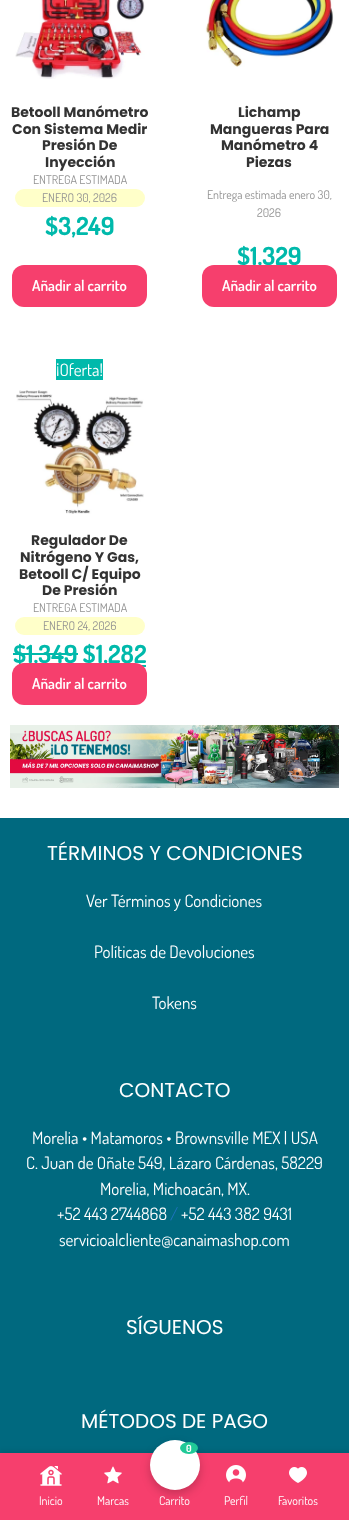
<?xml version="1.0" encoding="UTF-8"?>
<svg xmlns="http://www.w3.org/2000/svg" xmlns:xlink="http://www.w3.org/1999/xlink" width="349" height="1520">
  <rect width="100%" height="100%" fill="#ffffff" />
  <image x="15" y="0" width="130" height="79" xlink:href="image1.png" />
  <rect x="15" y="189" width="130" height="18" rx="9" fill="#ffffc9" />
  <rect x="12" y="265" width="135" height="42" rx="12" fill="#f63f6d" />
  <image x="205" y="0" width="129" height="67" xlink:href="image2.png" />
  <rect x="56" y="359" width="47" height="21" fill="#00b9ab" />
  <image x="16" y="390" width="128" height="124" xlink:href="image3.png" />
  <rect x="15" y="617" width="130" height="18" rx="9" fill="#ffffc9" />
  <rect x="13" y="653" width="65" height="2" fill="#00b9ab" />
  <rect x="141" y="665" width="5" height="2" fill="#00b9ab" />
  <image x="10" y="725" width="329" height="63" xlink:href="image4.png" />
  <rect y="818" width="349" height="635" fill="#00697f" />
  <rect y="1451" width="349" height="67" fill="#000000" fill-opacity="0.1" filter="blur(2.5px)" />
  <rect y="1453" width="349" height="67" fill="#f63f6d" />
  <rect x="150" y="1444" width="50" height="50" rx="25" fill="#000000" fill-opacity="0.2" filter="blur(5px)" />
  <circle cx="175" cy="1465" r="25" fill="#ffffff" />
  <ellipse cx="189" cy="1448" rx="9" ry="6" fill="#20c997" />
  <image x="40" y="1466" width="22" height="20" xlink:href="image5.png" />
  <image x="104" y="1466" width="18" height="18" xlink:href="image6.png" />
  <image x="226" y="1465" width="20" height="18" xlink:href="image7.png" />
  <image x="289" y="1467" width="18" height="16" xlink:href="image8.png" />
  <text x="11" y="117" style="font-family: Poppins; font-size: 14px; font-weight: bold; fill: #333333">Betooll Manómetro</text>
  <text x="12" y="134" style="font-family: Poppins; font-size: 14px; font-weight: bold; fill: #333333">Con Sistema Medir</text>
  <text x="42" y="150" style="font-family: Poppins; font-size: 14px; font-weight: bold; fill: #333333">Presión De</text>
  <text x="45" y="167" style="font-family: Poppins; font-size: 14px; font-weight: bold; fill: #333333">Inyección</text>
  <text x="33" y="184" style="font-family: Dosis; font-size: 12px; fill: #939393">ENTREGA ESTIMADA</text>
  <text x="42" y="202" style="font-family: Dosis; font-size: 12px; fill: #939393">ENERO 30, 2026</text>
  <text x="45" y="235" style="font-family: Dosis; font-size: 25px; font-weight: bold; fill: #00b9ab">$3,249</text>
  <text x="32" y="291" style="font-family: Dosis; font-size: 15px; font-weight: 600; fill: #ffffff">Añadir al carrito</text>
  <text x="238" y="117" style="font-family: Poppins; font-size: 14px; font-weight: bold; fill: #333333">Lichamp</text>
  <text x="210" y="134" style="font-family: Poppins; font-size: 14px; font-weight: bold; fill: #333333">Mangueras Para</text>
  <text x="221" y="150" style="font-family: Poppins; font-size: 14px; font-weight: bold; fill: #333333">Manómetro 4</text>
  <text x="246" y="167" style="font-family: Poppins; font-size: 14px; font-weight: bold; fill: #333333">Piezas</text>
  <text x="207" y="199" style="font-family: Dosis; font-size: 12px; fill: #939393">Entrega estimada enero 30,</text>
  <text x="257" y="217" style="font-family: Dosis; font-size: 12px; fill: #939393">2026</text>
  <text x="237" y="265" style="font-family: Dosis; font-size: 25px; font-weight: bold; fill: #00b9ab">$1,329</text>
  <rect x="202" y="265" width="135" height="42" rx="12" fill="#f63f6d" />
  <text x="222" y="291" style="font-family: Dosis; font-size: 15px; font-weight: 600; fill: #ffffff">Añadir al carrito</text>
  <text x="56" y="376" style="font-family: Dosis; font-size: 17px; fill: #ffffff">¡Oferta!</text>
  <text x="31" y="545" style="font-family: Poppins; font-size: 14px; font-weight: bold; fill: #333333">Regulador De</text>
  <text x="20" y="562" style="font-family: Poppins; font-size: 14px; font-weight: bold; fill: #333333">Nitrógeno Y Gas,</text>
  <text x="19" y="579" style="font-family: Poppins; font-size: 14px; font-weight: bold; fill: #333333">Betooll C/ Equipo</text>
  <text x="42" y="595" style="font-family: Poppins; font-size: 14px; font-weight: bold; fill: #333333">De Presión</text>
  <text x="33" y="612" style="font-family: Dosis; font-size: 12px; fill: #939393">ENTREGA ESTIMADA</text>
  <text x="43" y="630" style="font-family: Dosis; font-size: 12px; fill: #939393">ENERO 24, 2026</text>
  <text x="13" y="663" style="font-family: Dosis; font-size: 25px; font-weight: bold; fill: #00b9ab">$1,349 $</text>
  <text x="96" y="663" style="font-family: Dosis; font-size: 25px; font-weight: bold; fill: #00b9ab">1,282</text>
  <rect x="12" y="663" width="135" height="42" rx="12" fill="#f63f6d" />
  <text x="32" y="689" style="font-family: Dosis; font-size: 15px; font-weight: 600; fill: #ffffff">Añadir al carrito</text>
  <text x="47" y="860" style="font-family: Poppins; font-size: 20px; fill: #ffffff">TÉRMINOS Y CONDICIONES</text>
  <text x="86" y="907" style="font-family: Dosis; font-size: 17px; fill: #ffffff">Ver Términos y Condiciones</text>
  <text x="94" y="958" style="font-family: Dosis; font-size: 17px; fill: #ffffff">Políticas de Devoluciones</text>
  <text x="152" y="1009" style="font-family: Dosis; font-size: 17px; fill: #ffffff">Tokens</text>
  <text x="119" y="1097" style="font-family: Poppins; font-size: 20px; fill: #ffffff">CONTACTO</text>
  <text x="32" y="1144" style="font-family: Dosis; font-size: 17px; fill: #ffffff">Morelia • Matamoros • Brownsville MEX | USA</text>
  <text x="26" y="1169" style="font-family: Dosis; font-size: 17px; fill: #ffffff">C. Juan de Oñate 549, Lázaro Cárdenas, 58229</text>
  <text x="100" y="1195" style="font-family: Dosis; font-size: 17px; fill: #ffffff">Morelia, Michoacán, MX.</text>
  <text x="57" y="1220" style="font-family: Dosis; font-size: 17px; fill: #ffffff">+52 443 2744868</text>
  <text x="170" y="1220" style="font-family: Dosis; font-size: 17px; fill: #1e73be">/</text>
  <text x="181" y="1220" style="font-family: Dosis; font-size: 17px; fill: #ffffff">+52 443 382 9431</text>
  <text x="59" y="1246" style="font-family: Dosis; font-size: 17px; fill: #ffffff">servicioalcliente@canaimashop.com</text>
  <text x="126" y="1334" style="font-family: Poppins; font-size: 20px; fill: #ffffff">SÍGUENOS</text>
  <text x="81" y="1428" style="font-family: Poppins; font-size: 20px; fill: #ffffff">MÉTODOS DE PAGO</text>
  <text x="186" y="1452" style="font-family: Dosis; font-size: 10px; font-weight: bold; fill: #ffffff">0</text>
  <text x="39" y="1505" style="font-family: Dosis; font-size: 12px; fill: #ffffff">Inicio</text>
  <text x="97" y="1505" style="font-family: Dosis; font-size: 12px; fill: #ffffff">Marcas</text>
  <text x="159" y="1505" style="font-family: Dosis; font-size: 12px; fill: #ffffff">Carrito</text>
  <text x="224" y="1505" style="font-family: Dosis; font-size: 12px; fill: #ffffff">Perfil</text>
  <text x="278" y="1505" style="font-family: Dosis; font-size: 12px; fill: #ffffff">Favoritos</text>
</svg>
